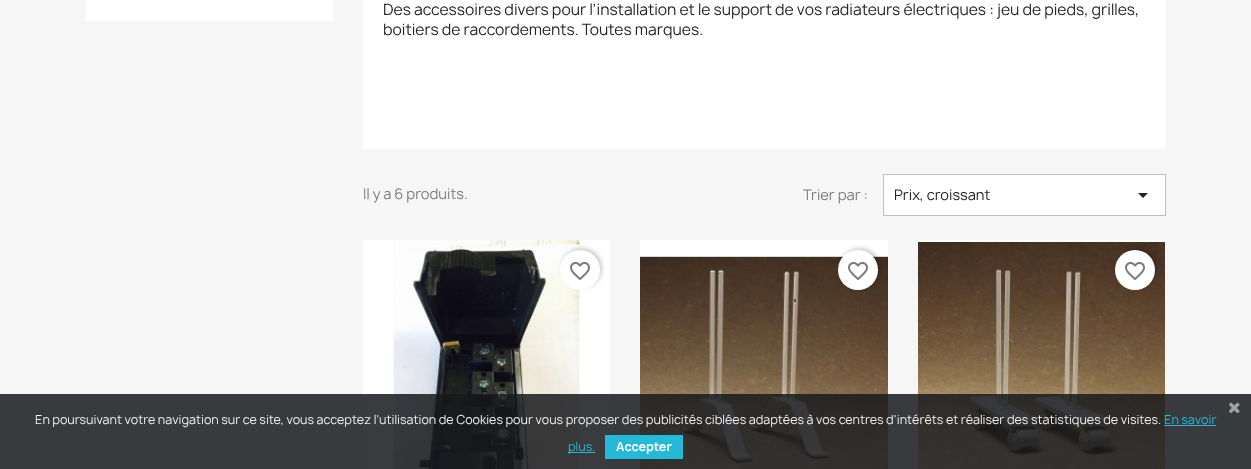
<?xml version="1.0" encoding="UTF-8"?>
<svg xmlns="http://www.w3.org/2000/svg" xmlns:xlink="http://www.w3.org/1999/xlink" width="1251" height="469">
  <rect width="100%" height="100%" fill="#f6f6f6" />
  <rect x="86" width="247" height="21" fill="#ffffff" />
  <rect x="363" width="803" height="149" fill="#ffffff" />
  <rect x="883.5" y="174.5" width="282" height="41" fill="#ffffff" stroke="#bfbfbf" />
  <path d="M 1138 193 h 10 l -5 5 z" fill="#232323" />
  <rect x="363" y="240" width="247" height="229" fill="#ffffff" />
  <image x="393" y="240" width="189" height="229" xlink:href="image1.png" />
  <rect x="562" y="248" width="40" height="40" rx="20" fill="#000000" fill-opacity="0.2" filter="blur(2px)" />
  <circle cx="580" cy="270" r="20" fill="#ffffff" />
  <image x="570" y="262" width="20" height="19" xlink:href="image2.png" />
  <rect x="640" y="240" width="248" height="15" fill="#ffffff" />
  <image x="640" y="255" width="248" height="214" xlink:href="image3.png" />
  <rect x="840" y="248" width="40" height="40" rx="20" fill="#000000" fill-opacity="0.2" filter="blur(2px)" />
  <circle cx="858" cy="270" r="20" fill="#ffffff" />
  <image x="848" y="262" width="20" height="19" xlink:href="image2.png" />
  <image x="918" y="240" width="247" height="229" xlink:href="image4.png" />
  <rect x="1117" y="248" width="40" height="40" rx="20" fill="#000000" fill-opacity="0.2" filter="blur(2px)" />
  <circle cx="1135" cy="270" r="20" fill="#ffffff" />
  <image x="1125" y="262" width="20" height="19" xlink:href="image2.png" />
  <rect y="394" width="1251" height="75" fill="#17191c" fill-opacity="0.85" />
  <image x="1229" y="402" width="11" height="12" xlink:href="image5.png" />
  <rect x="1164" y="425" width="52" height="1" fill="#25b9d7" />
  <rect x="568" y="452" width="27" height="1" fill="#25b9d7" />
  <rect x="605" y="435" width="78" height="24" fill="#25b9d7" />
  <text x="383" y="15" style="font-family: Manrope; font-size: 15px; fill: #232323">Des accessoires divers pour l'installation et le support de vos radiateurs électriques : jeu de pieds, grilles,</text>
  <text x="383" y="35" style="font-family: Manrope; font-size: 15px; fill: #232323">boitiers de raccordements. Toutes marques.</text>
  <text x="363" y="199" style="font-family: Manrope; font-size: 14px; fill: #7a7a7a">Il y a 6 produits.</text>
  <text x="803" y="200" style="font-family: Manrope; font-size: 14px; fill: #7a7a7a">Trier par :</text>
  <text x="894" y="200" style="font-family: Manrope; font-size: 14px; fill: #232323">Prix, croissant</text>
  <text x="793" y="311" style="font-family: Manrope; font-size: 16px; font-weight: 600; fill: #5a4635">'</text>
  <text x="35" y="424" style="font-family: Manrope; font-size: 12px; fill: #efefef">En poursuivant votre navigation sur ce site, vous acceptez l'utilisation de Cookies pour vous proposer des publicités ciblées adaptées à vos centres d'intérêts et réaliser des statistiques de visites.</text>
  <text x="1164" y="424" style="font-family: Manrope; font-size: 12px; fill: #25b9d7">En savoir</text>
  <text x="568" y="451" style="font-family: Manrope; font-size: 12px; fill: #25b9d7">plus.</text>
  <text x="616" y="451" style="font-family: Manrope; font-size: 12px; font-weight: bold; fill: #ffffff">Accepter</text>
</svg>
